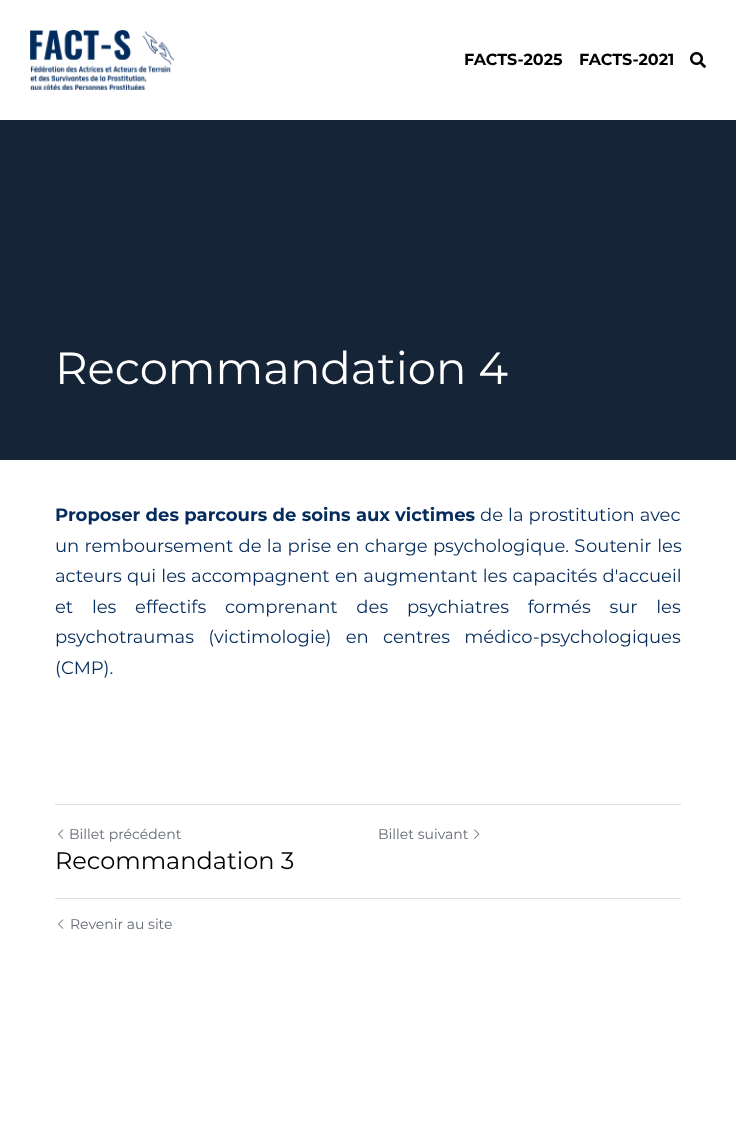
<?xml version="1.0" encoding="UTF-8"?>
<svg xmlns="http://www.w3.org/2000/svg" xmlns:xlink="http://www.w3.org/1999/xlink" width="736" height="1137">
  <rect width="100%" height="100%" fill="#ffffff" />
  <image x="30" y="30" width="144" height="60" xlink:href="image1.png" />
  <image x="690" y="52" width="16" height="16" xlink:href="image2.png" />
  <rect y="120" width="736" height="340" fill="#152537" />
  <rect x="55" y="804" width="626" height="1" fill="#dddddd" />
  <image x="58" y="829" width="6" height="10" xlink:href="image3.png" />
  <image x="474" y="829" width="6" height="10" xlink:href="image4.png" />
  <rect x="55" y="898" width="626" height="1" fill="#dddddd" />
  <image x="58" y="919" width="6" height="10" xlink:href="image3.png" />
  <text x="464" y="65" style="font-family: Montserrat; font-size: 16px; font-weight: bold; fill: #000000">FACTS-2025</text>
  <text x="579" y="65" style="font-family: Montserrat; font-size: 16px; font-weight: bold; fill: #000000">FACTS-2021</text>
  <text x="55" y="384" style="font-family: Montserrat; font-size: 45px; fill: #ffffff">Recommandation 4</text>
  <text x="55" y="521" word-spacing="0.25" style="font-family: Montserrat; font-size: 18px; font-weight: bold; fill: #052c5c">Proposer des parcours de soins aux</text>
  <text x="395" y="521" style="font-family: Montserrat; font-size: 18px; font-weight: bold; fill: #052c5c">victimes</text>
  <text x="480" y="521" word-spacing="0.25" style="font-family: Montserrat; font-size: 18px; fill: #052c5c">de la prostitution avec</text>
  <text x="55" y="552" word-spacing="0.5" style="font-family: Montserrat; font-size: 18px; fill: #052c5c">un remboursement de la prise en charge psychologique. S</text>
  <text x="586" y="552" word-spacing="1" style="font-family: Montserrat; font-size: 18px; fill: #052c5c">outenir les</text>
  <text x="55" y="582" word-spacing="0.5" style="font-family: Montserrat; font-size: 18px; fill: #052c5c">acteurs qui les accompagnent</text>
  <text x="335" y="582" word-spacing="0.5" style="font-family: Montserrat; font-size: 18px; fill: #052c5c">en augmentant les capacités d'accueil</text>
  <text x="55" y="613" word-spacing="14" style="font-family: Montserrat; font-size: 18px; fill: #052c5c">et les effectifs comprenant des psychiatres formés sur les</text>
  <text x="55" y="643" word-spacing="9.5" style="font-family: Montserrat; font-size: 18px; fill: #052c5c">psychotraumas (victimologie) en centres médico-psychologiques</text>
  <text x="55" y="674" style="font-family: Montserrat; font-size: 18px; fill: #052c5c">(CMP).</text>
  <text x="69" y="839" style="font-family: Montserrat; font-size: 14px; fill: #636972">Billet précédent</text>
  <text x="55" y="869" style="font-family: Montserrat; font-size: 24px; fill: #000000">Recommandation 3</text>
  <text x="378" y="839" style="font-family: Montserrat; font-size: 14px; fill: #636972">Billet suivant</text>
  <text x="70" y="929" style="font-family: Montserrat; font-size: 14px; fill: #636972">Revenir au site</text>
</svg>
